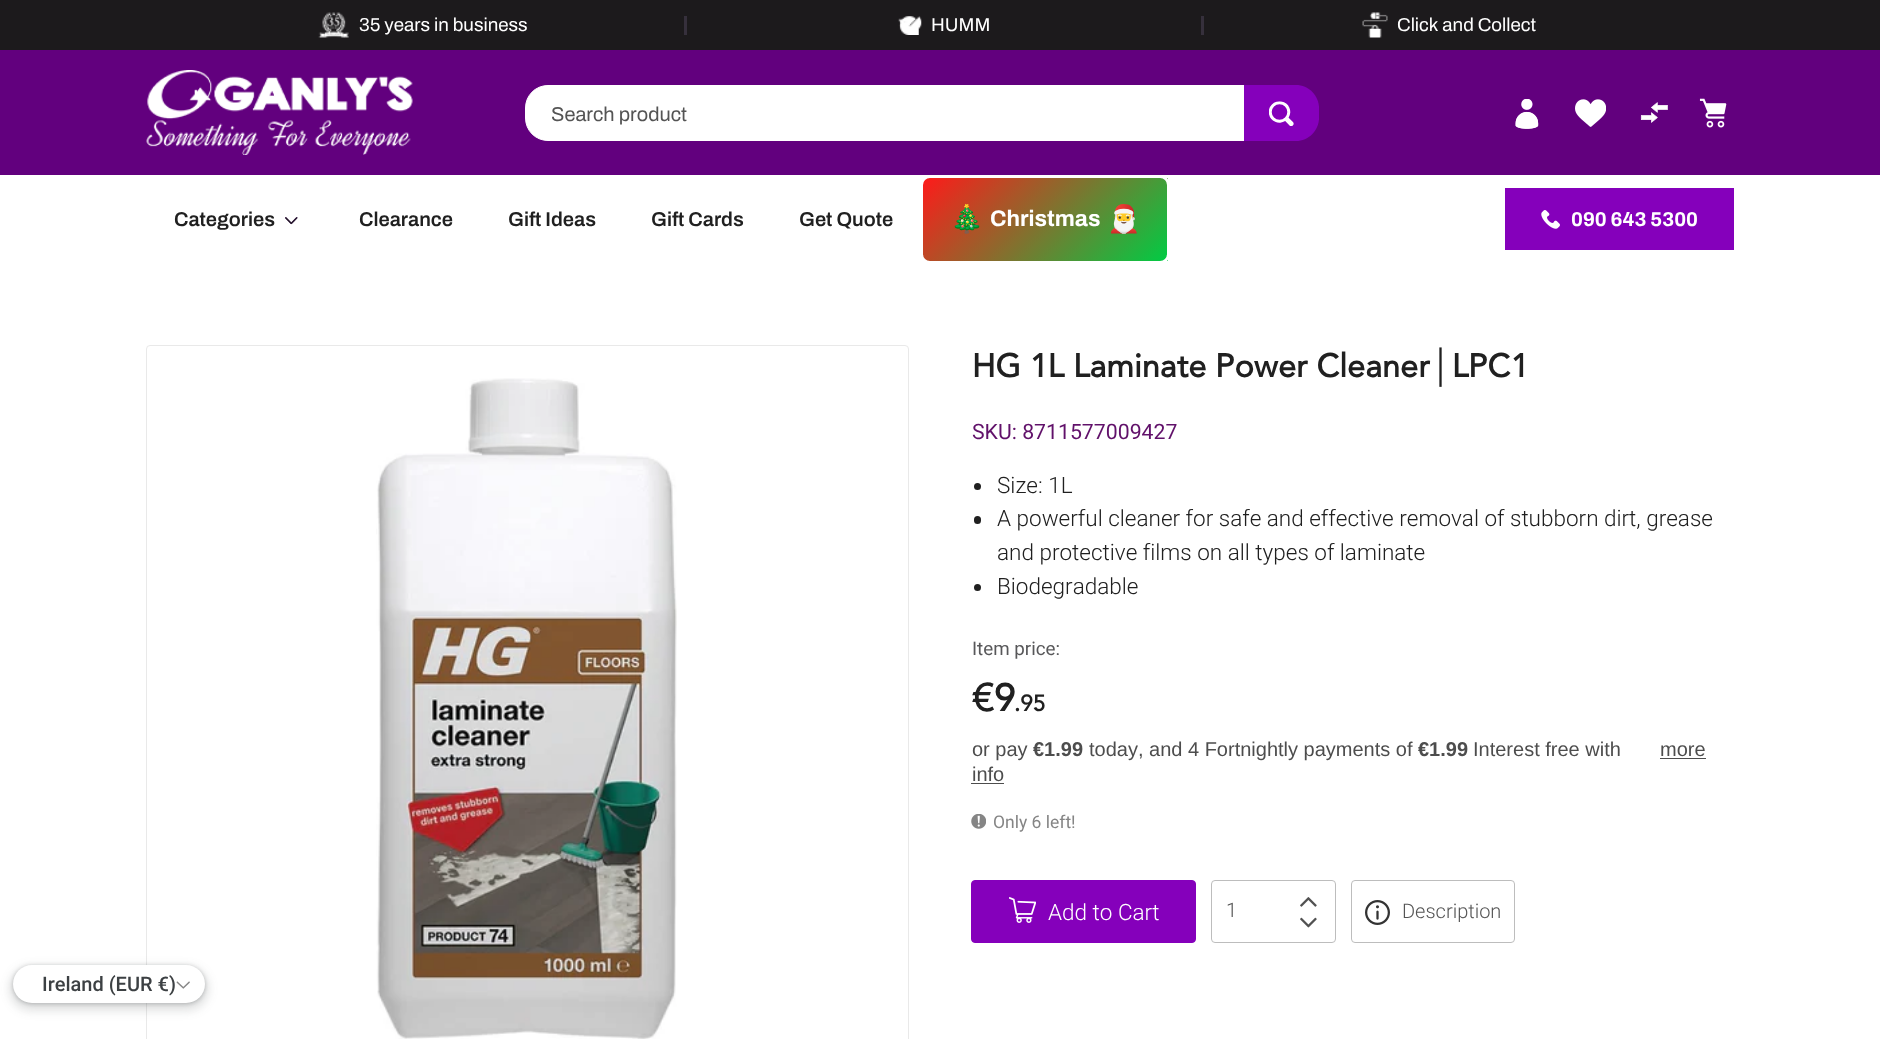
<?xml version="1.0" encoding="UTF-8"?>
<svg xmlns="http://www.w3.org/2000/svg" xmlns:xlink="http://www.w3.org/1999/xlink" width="1880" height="1039">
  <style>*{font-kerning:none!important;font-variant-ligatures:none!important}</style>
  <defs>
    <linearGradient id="g1" gradientUnits="userSpaceOnUse" x1="963" y1="137" x2="1127" y2="302"><stop offset="0" stop-color="#ff1a1a" /><stop offset="1" stop-color="#00cc44" /></linearGradient>
  </defs>
  <rect width="100%" height="100%" fill="#ffffff" />
  <rect width="1880" height="50" fill="#1c1a1c" />
  <image x="318" y="12" width="31" height="26" xlink:href="image1.png" />
  <rect x="684" y="16" width="3" height="19" fill="#36303c" />
  <image x="898" y="16" width="24" height="19" xlink:href="image2.png" />
  <rect x="1201" y="16" width="3" height="19" fill="#36303c" />
  <image x="1362" y="12" width="26" height="26" xlink:href="image3.png" />
  <rect y="50" width="1880" height="125" fill="#62007e" />
  <image x="146" y="70" width="267" height="85" xlink:href="image4.png" />
  <path d="M 548 85.5 h 743 c 15 0 27.5 12.5 27.5 27.5 c 0 15 -12.5 27.5 -27.5 27.5 h -743 c -12.5 0 -22.5 -10 -22.5 -22.5 v -10 c 0 -12.5 10 -22.5 22.5 -22.5 z" fill="#ffffff" stroke="#ffffff" />
  <path d="M 1244 85 h 52 c 12.5 0 23 10.5 23 23 v 10 c 0 12.5 -10.5 23 -23 23 h -52 z" fill="#8500bb" />
  <image x="1269" y="101" width="25" height="25" xlink:href="image5.png" />
  <image x="1515" y="99" width="24" height="30" xlink:href="image6.png" />
  <image x="1575" y="99" width="31" height="28" xlink:href="image7.png" />
  <image x="1640" y="102" width="28" height="21" xlink:href="image8.png" />
  <image x="1699" y="98" width="28" height="30" xlink:href="image9.png" />
  <image x="285" y="217" width="13" height="8" xlink:href="image10.png" />
  <rect x="923" y="178" width="245" height="83" fill="url(#g1)" />
  <rect x="921.5" y="176.5" width="247" height="86" rx="8.5" fill="none" stroke="#ffffff" stroke-width="3" />
  <rect x="1505" y="188" width="229" height="62" fill="#8500bb" />
  <image x="1541" y="210" width="19" height="19" xlink:href="image11.png" />
  <rect x="146.5" y="345.5" width="762" height="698" rx="3.5" fill="none" stroke="#e9e9e9" />
  <image x="376" y="378" width="301" height="661" xlink:href="image12.png" />
  <circle cx="977.5" cy="486.5" r="3.5" fill="#202020" />
  <rect x="974" y="516" width="7" height="8" rx="3.5" fill="#202020" />
  <circle cx="977.5" cy="587.5" r="3.5" fill="#202020" />
  <rect x="1660" y="758" width="46" height="1" fill="#4d4d4d" />
  <rect x="971" y="783" width="33" height="1" fill="#4d4d4d" />
  <image x="971" y="814" width="15" height="15" xlink:href="image13.png" />
  <rect x="971.5" y="880.5" width="224" height="62" rx="3.5" fill="#8500bb" stroke="#8500bb" />
  <image x="1009" y="897" width="27" height="26" xlink:href="image14.png" />
  <rect x="1211.5" y="880.5" width="124" height="62" rx="3.5" fill="none" stroke="#bdbdbd" />
  <image x="1300" y="897" width="17" height="10" xlink:href="image15.png" />
  <image x="1300" y="917" width="17" height="11" xlink:href="image16.png" />
  <rect x="1351.5" y="880.5" width="163" height="62" rx="3.5" fill="none" stroke="#bdbdbd" />
  <image x="1365" y="900" width="25" height="25" xlink:href="image17.png" />
  <rect x="9" y="966" width="200" height="45" rx="22.5" fill="#3c4043" fill-opacity="0.15" filter="blur(5px)" />
  <rect x="13" y="966" width="192" height="38" rx="19" fill="#3c4043" fill-opacity="0.3" filter="blur(2px)" />
  <rect x="13" y="965" width="192" height="38" rx="19" fill="#ffffff" />
  <image x="176" y="981" width="14" height="8" xlink:href="image18.png" />
  <text x="359" y="31" style="font-family: Archivo; font-size: 18.75px; fill: #ffffff">35 years in business</text>
  <text x="931" y="31" style="font-family: Archivo; font-size: 18.75px; fill: #ffffff">HUMM</text>
  <text x="1397" y="31" style="font-family: Archivo; font-size: 18.75px; fill: #ffffff">Click and Collect</text>
  <text x="551" y="121" style="font-family: Archivo; font-size: 20px; fill: #545454">Search product</text>
  <text x="174" y="226" style="font-family: Archivo; font-size: 20px; font-weight: 600; fill: #202020">Categories</text>
  <text x="359" y="226" style="font-family: Archivo; font-size: 20px; font-weight: 600; fill: #202020">Clearance</text>
  <text x="508" y="226" style="font-family: Archivo; font-size: 20px; font-weight: 600; fill: #202020">Gift Ideas</text>
  <text x="651" y="226" style="font-family: Archivo; font-size: 20px; font-weight: 600; fill: #202020">Gift Cards</text>
  <text x="799" y="226" style="font-family: Archivo; font-size: 20px; font-weight: 600; fill: #202020">Get Quote</text>
  <text x="950" y="228" style="font-family: Noto Color Emoji; font-size: 27px; font-weight: bold; fill: #ffffff">🎄</text>
  <text x="990" y="226" style="font-family: Archivo; font-size: 22.5px; font-weight: bold; fill: #ffffff">Christmas</text>
  <text x="1107" y="228" style="font-family: Noto Color Emoji; font-size: 27px; font-weight: bold; fill: #ffffff">🎅</text>
  <text x="1571" y="226" style="font-family: Archivo; font-size: 20px; font-weight: bold; fill: #ffffff">090 643 5300</text>
  <text x="972" y="377" style="font-family: Avenir; font-size: 32.5px; font-weight: bold; fill: #202020">HG 1L Laminate Power Cleaner</text>
  <text x="1429" y="377" style="font-family: Liberation Serif; font-size: 32.5px; font-weight: bold; fill: #202020">│</text>
  <text x="1452" y="377" style="font-family: Avenir; font-size: 32.5px; font-weight: bold; fill: #202020">LPC1</text>
  <text x="972" y="439" style="font-family: Roboto; font-size: 21.25px; fill: #61116a">SKU: 8711577009427</text>
  <text x="997" y="493" style="font-family: Roboto; font-size: 22.5px; font-weight: 300; fill: #202020">Size: 1L</text>
  <text x="997" y="526" style="font-family: Roboto; font-size: 22.5px; font-weight: 300; fill: #202020">A powerful cleaner for safe and effective removal of stubborn dirt, grease</text>
  <text x="997" y="560" style="font-family: Roboto; font-size: 22.5px; font-weight: 300; fill: #202020">and protective films on all types of laminate</text>
  <text x="997" y="594" style="font-family: Roboto; font-size: 22.5px; font-weight: 300; fill: #202020">Biodegradable</text>
  <text x="972" y="655" style="font-family: Roboto; font-size: 18.75px; fill: #58585a">Item price:</text>
  <text x="972" y="711" style="font-family: Avenir; font-size: 38px; font-weight: bold; fill: #202020">€9</text>
  <text x="1014" y="711" style="font-family: Avenir; font-size: 22.5px; font-weight: bold; fill: #202020">.95</text>
  <text x="972" y="756" style="font-family: Liberation Sans; font-size: 20px; fill: #4d4d4d">or pay</text>
  <text x="1033" y="756" style="font-family: Liberation Sans; font-size: 20px; font-weight: bold; fill: #4d4d4d">€1.99</text>
  <text x="1089" y="756" style="font-family: Liberation Sans; font-size: 20px; fill: #4d4d4d">today, and 4 Fortnightly payments of</text>
  <text x="1418" y="756" style="font-family: Liberation Sans; font-size: 20px; font-weight: bold; fill: #4d4d4d">€1.99</text>
  <text x="1473" y="756" style="font-family: Liberation Sans; font-size: 20px; fill: #4d4d4d">Interest free with</text>
  <text x="1660" y="756" style="font-family: Liberation Sans; font-size: 20px; fill: #4d4d4d">more</text>
  <text x="972" y="781" style="font-family: Liberation Sans; font-size: 20px; fill: #4d4d4d">info</text>
  <text x="993" y="828" style="font-family: Roboto; font-size: 17.5px; fill: #858585">Only 6 left!</text>
  <text x="1048" y="920" style="font-family: Roboto; font-size: 22.5px; font-weight: 300; fill: #ffffff">Add to Cart</text>
  <text x="1226" y="917" style="font-family: Roboto; font-size: 20px; font-weight: 300; fill: #545454">1</text>
  <text x="1402" y="918" style="font-family: Roboto; font-size: 20px; font-weight: 300; fill: #545454">Description</text>
  <text x="42" y="991" style="font-family: Roboto; font-size: 20px; font-weight: 500; fill: #3c4043">Ireland (EUR €)</text>
</svg>
